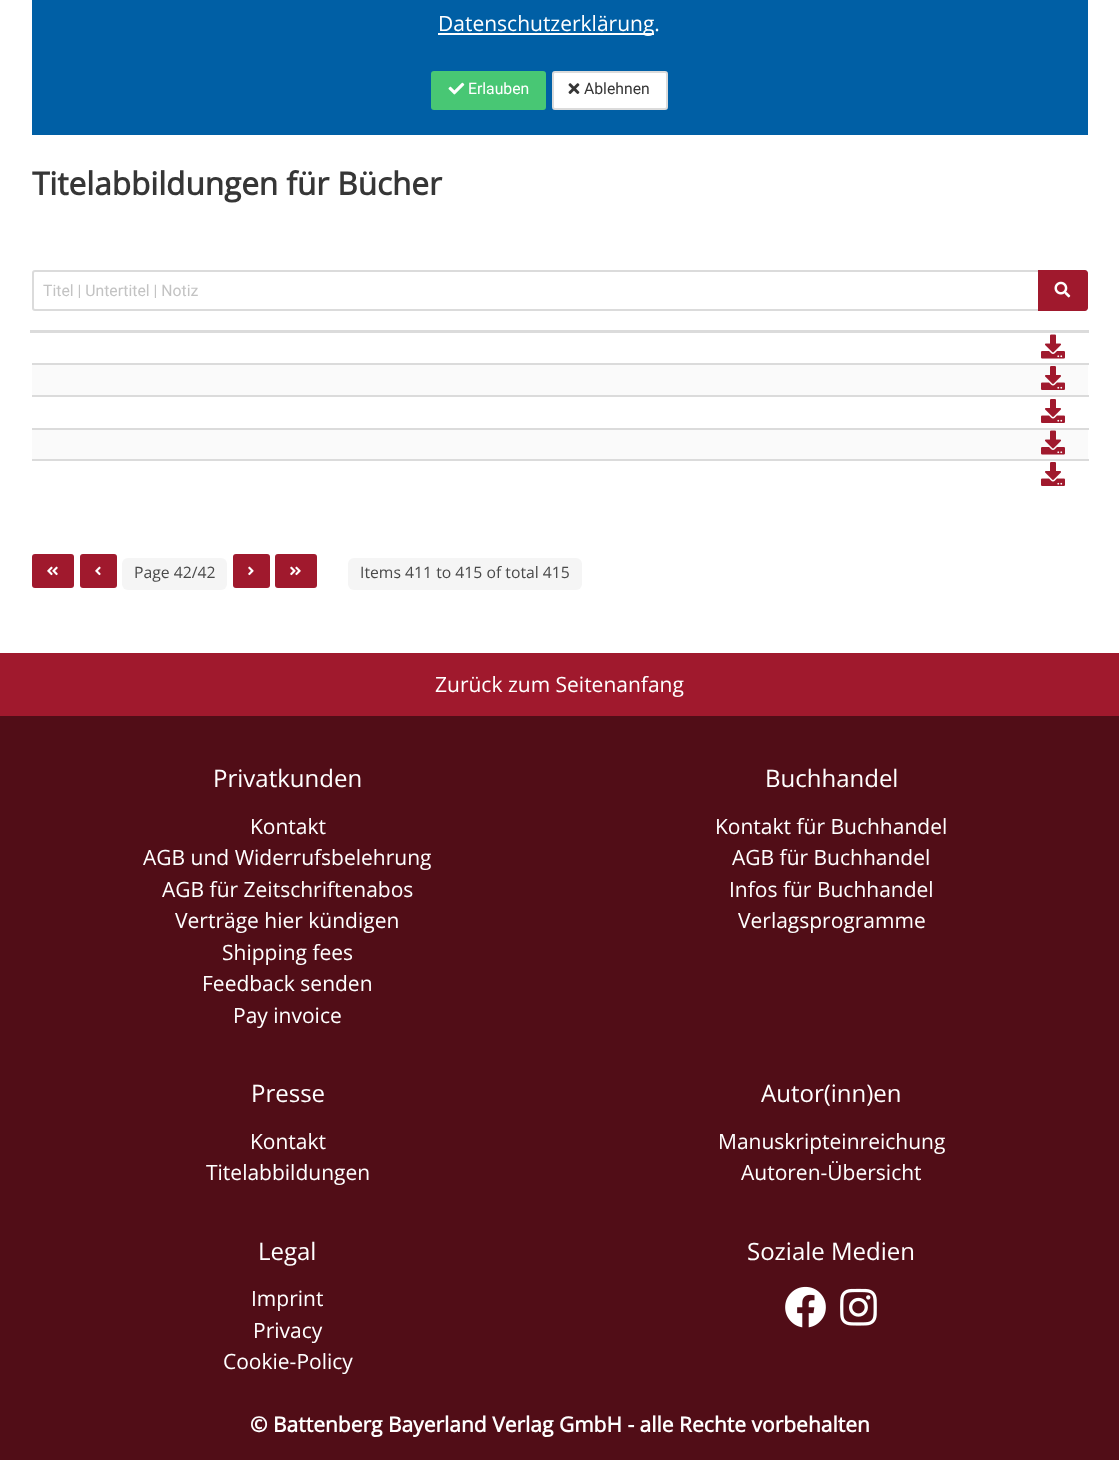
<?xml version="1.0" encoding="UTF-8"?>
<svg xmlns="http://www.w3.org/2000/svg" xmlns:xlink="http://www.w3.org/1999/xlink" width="1119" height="1460">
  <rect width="100%" height="100%" fill="#ffffff" />
  <rect x="32" width="1056" height="135" fill="#005fa5" />
  <rect x="438" y="33" width="216" height="2" fill="#ffffff" />
  <rect x="431" y="71" width="115" height="39" rx="3" fill="#48c774" />
  <image x="448" y="82" width="17" height="13" xlink:href="image1.png" />
  <rect x="553" y="72" width="114" height="37" rx="2" fill="#ffffff" stroke="#dbdbdb" stroke-width="2" />
  <image x="568" y="83" width="12" height="11" xlink:href="image2.png" />
  <path d="M 35 271 h 1004 v 39 h -1004 c -1 0 -2 -1 -2 -2 v -35 c 0 -1 1 -2 2 -2 z" fill="none" stroke="#dbdbdb" stroke-width="2" />
  <path d="M 1038 270 h 47 c 1.5 0 3 1.5 3 3 v 35 c 0 1.5 -1.5 3 -3 3 h -47 z" fill="#a0192d" />
  <image x="1054" y="281" width="17" height="17" xlink:href="image3.png" />
  <rect x="30" y="330" width="1059" height="3" fill="#dbdbdb" />
  <rect x="32" y="363" width="1057" height="2" fill="#dbdbdb" />
  <image x="1041" y="334" width="24" height="25" xlink:href="image4.png" />
  <rect x="32" y="365" width="1056" height="30" fill="#fafafa" />
  <rect x="32" y="395" width="1057" height="2" fill="#dbdbdb" />
  <image x="1041" y="366" width="24" height="24" xlink:href="image5.png" />
  <rect x="32" y="428" width="1057" height="2" fill="#dbdbdb" />
  <image x="1041" y="399" width="24" height="24" xlink:href="image6.png" />
  <rect x="32" y="430" width="1056" height="29" fill="#fafafa" />
  <rect x="32" y="459" width="1057" height="2" fill="#dbdbdb" />
  <image x="1041" y="430" width="24" height="25" xlink:href="image7.png" />
  <image x="1041" y="462" width="24" height="24" xlink:href="image6.png" />
  <rect x="32" y="554" width="42" height="34" rx="3" fill="#a0192d" />
  <image x="47" y="566" width="11" height="10" xlink:href="image8.png" />
  <rect x="80" y="554" width="37" height="34" rx="3" fill="#a0192d" />
  <image x="95" y="566" width="6" height="10" xlink:href="image9.png" />
  <rect x="122" y="558" width="105" height="32" rx="6" fill="#f5f5f5" />
  <rect x="233" y="554" width="37" height="34" rx="3" fill="#a0192d" />
  <image x="248" y="566" width="6" height="10" xlink:href="image10.png" />
  <rect x="275" y="554" width="42" height="34" rx="3" fill="#a0192d" />
  <image x="290" y="566" width="11" height="10" xlink:href="image11.png" />
  <rect x="348" y="558" width="234" height="32" rx="6" fill="#f5f5f5" />
  <rect y="716" width="1119" height="744" fill="#510d17" />
  <rect y="653" width="1119" height="63" fill="#a0192d" />
  <image x="785" y="1286" width="41" height="42" xlink:href="image12.png" />
  <image x="840" y="1288" width="37" height="38" xlink:href="image13.png" />
  <text x="438" y="31" style="font-family: Open Sans; font-size: 21px; fill: #ffffff">Datenschutzerklärung.</text>
  <text x="468" y="94" style="font-family: Roboto; font-size: 15.75px; fill: #ffffff">Erlauben</text>
  <text x="584" y="94" style="font-family: Roboto; font-size: 15.75px; fill: #363636">Ablehnen</text>
  <text x="32" y="195" style="font-family: Open Sans; font-size: 31.5px; font-weight: bold; fill: #363636">Titelabbildungen für Bücher</text>
  <text x="43" y="296" style="font-family: Roboto; font-size: 15.75px; fill: #c3c3c3">Titel | Untertitel | Notiz</text>
  <text x="134" y="578" style="font-family: Open Sans; font-size: 15.75px; fill: #4a4a4a">Page 42/42</text>
  <text x="360" y="578" style="font-family: Open Sans; font-size: 15.75px; fill: #4a4a4a">Items 411 to 415 of total 415</text>
  <text x="435" y="692" style="font-family: Open Sans; font-size: 21px; fill: #ffffff">Zurück zum Seitenanfang</text>
  <text x="213" y="787" style="font-family: Open Sans; font-size: 24px; fill: #ffffff">Privatkunden</text>
  <text x="250" y="834" style="font-family: Open Sans; font-size: 21px; fill: #ffffff">Kontakt</text>
  <text x="143" y="865" style="font-family: Open Sans; font-size: 21px; fill: #ffffff">AGB und Widerrufsbelehrung</text>
  <text x="162" y="897" style="font-family: Open Sans; font-size: 21px; fill: #ffffff">AGB für Zeitschriftenabos</text>
  <text x="175" y="928" style="font-family: Open Sans; font-size: 21px; fill: #ffffff">Verträge hier kündigen</text>
  <text x="222" y="960" style="font-family: Open Sans; font-size: 21px; fill: #ffffff">Shipping fees</text>
  <text x="202" y="991" style="font-family: Open Sans; font-size: 21px; fill: #ffffff">Feedback senden</text>
  <text x="233" y="1023" style="font-family: Open Sans; font-size: 21px; fill: #ffffff">Pay invoice</text>
  <text x="765" y="787" style="font-family: Open Sans; font-size: 24px; fill: #ffffff">Buchhandel</text>
  <text x="715" y="834" style="font-family: Open Sans; font-size: 21px; fill: #ffffff">Kontakt für Buchhandel</text>
  <text x="732" y="865" style="font-family: Open Sans; font-size: 21px; fill: #ffffff">AGB für Buchhandel</text>
  <text x="729" y="897" style="font-family: Open Sans; font-size: 21px; fill: #ffffff">Infos für Buchhandel</text>
  <text x="738" y="928" style="font-family: Open Sans; font-size: 21px; fill: #ffffff">Verlagsprogramme</text>
  <text x="251" y="1102" style="font-family: Open Sans; font-size: 24px; fill: #ffffff">Presse</text>
  <text x="250" y="1149" style="font-family: Open Sans; font-size: 21px; fill: #ffffff">Kontakt</text>
  <text x="206" y="1180" style="font-family: Open Sans; font-size: 21px; fill: #ffffff">Titelabbildungen</text>
  <text x="761" y="1102" style="font-family: Open Sans; font-size: 24px; fill: #ffffff">Autor(inn)en</text>
  <text x="718" y="1149" style="font-family: Open Sans; font-size: 21px; fill: #ffffff">Manuskripteinreichung</text>
  <text x="741" y="1180" style="font-family: Open Sans; font-size: 21px; fill: #ffffff">Autoren-Übersicht</text>
  <text x="258" y="1260" style="font-family: Open Sans; font-size: 24px; fill: #ffffff">Legal</text>
  <text x="251" y="1306" style="font-family: Open Sans; font-size: 21px; fill: #ffffff">Imprint</text>
  <text x="253" y="1338" style="font-family: Open Sans; font-size: 21px; fill: #ffffff">Privacy</text>
  <text x="223" y="1369" style="font-family: Open Sans; font-size: 21px; fill: #ffffff">Cookie-Policy</text>
  <text x="747" y="1260" style="font-family: Open Sans; font-size: 24px; fill: #ffffff">Soziale Medien</text>
  <text x="250" y="1432" style="font-family: Open Sans; font-size: 21px; font-weight: bold; fill: #ffffff">© Battenberg Bayerland Verlag GmbH - alle Rechte vorbehalten</text>
</svg>
